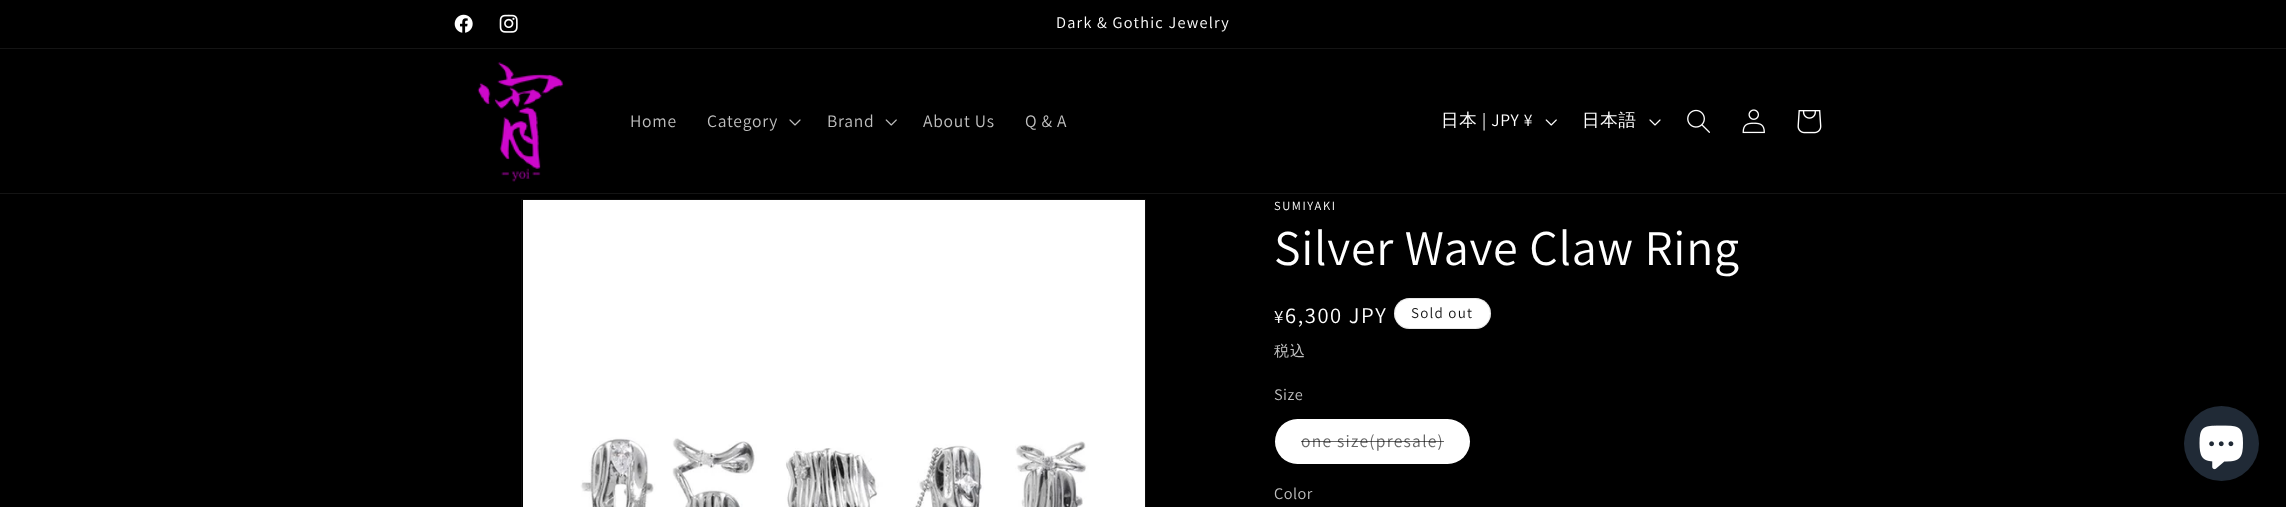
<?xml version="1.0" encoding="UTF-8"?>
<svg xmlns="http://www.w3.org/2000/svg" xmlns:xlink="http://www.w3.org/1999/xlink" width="2286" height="507">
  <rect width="100%" height="100%" fill="#000000" />
  <rect y="48" width="2286" height="1" fill="#141414" />
  <image x="454" y="14" width="19" height="19" xlink:href="image1.png" />
  <image x="499" y="14" width="19" height="19" xlink:href="image2.png" />
  <rect y="193" width="2286" height="1" fill="#141414" />
  <image x="477" y="62" width="87" height="120" xlink:href="image3.png" />
  <image x="789" y="119" width="12" height="7" xlink:href="image4.png" />
  <image x="885" y="119" width="12" height="7" xlink:href="image5.png" />
  <image x="1545" y="119" width="12" height="7" xlink:href="image6.png" />
  <image x="1649" y="119" width="12" height="7" xlink:href="image7.png" />
  <image x="1687" y="109" width="23" height="24" xlink:href="image8.png" />
  <image x="1742" y="109" width="23" height="25" xlink:href="image9.png" />
  <image x="1797" y="110" width="25" height="24" xlink:href="image10.png" />
  <rect x="521.5" y="199.5" width="624" height="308" fill="none" stroke="#0d0d0d" />
  <image x="523" y="200" width="622" height="307" xlink:href="image11.png" />
  <rect x="1394" y="298" width="97" height="31" rx="15.5" fill="#ffffff" />
  <rect x="1394.5" y="298.5" width="96" height="30" rx="15" fill="none" stroke="#121212" stroke-opacity="0.1" />
  <rect x="1275" y="419" width="195" height="45" rx="22.5" fill="#ffffff" />
  <rect x="1275.5" y="419.5" width="194" height="44" rx="22" fill="none" stroke="#ffffff" stroke-opacity="0.1" />
  <circle cx="2221.5" cy="443.5" r="37.5" fill="#202a36" />
  <image x="2199" y="425" width="44" height="45" xlink:href="image12.png" />
  <text x="1056" y="28" style="font-family: Assistant; font-size: 16.25px; letter-spacing: 1.25px; fill: #ffffff">Dark &amp; Gothic Jewelry</text>
  <text x="630" y="127" style="font-family: Assistant; font-size: 17.5px; letter-spacing: 0.75px; fill: #bfbfbf">Home</text>
  <text x="707" y="127" style="font-family: Assistant; font-size: 17.5px; letter-spacing: 0.75px; fill: #bfbfbf">Category</text>
  <text x="827" y="127" style="font-family: Assistant; font-size: 17.5px; letter-spacing: 0.75px; fill: #bfbfbf">Brand</text>
  <text x="923" y="127" style="font-family: Assistant; font-size: 17.5px; letter-spacing: 0.75px; fill: #bfbfbf">About Us</text>
  <text x="1025" y="127" style="font-family: Assistant; font-size: 17.5px; letter-spacing: 0.75px; fill: #bfbfbf">Q &amp; A</text>
  <text x="1441" y="126" style="font-family: WenQuanYi Zen Hei; font-size: 17.5px; font-weight: 500; letter-spacing: 0.75px; fill: #ffffff">日本</text>
  <text x="1482" y="126" style="font-family: Assistant; font-size: 17.5px; letter-spacing: 0.75px; fill: #ffffff">| JPY ¥</text>
  <text x="1582" y="126" style="font-family: WenQuanYi Zen Hei; font-size: 17.5px; font-weight: 500; letter-spacing: 0.75px; fill: #ffffff">日本語</text>
  <text x="1274" y="210" style="font-family: Assistant; font-size: 12.5px; letter-spacing: 1.6px; fill: #ffffff">SUMIYAKI</text>
  <text x="1274" y="265" style="font-family: Assistant; font-size: 50px; letter-spacing: 0.75px; fill: #ffffff">Silver Wave Claw Ring</text>
  <text x="1274" y="323" style="font-family: Assistant; font-size: 19px; letter-spacing: 1.6px; fill: #ffffff">¥</text>
  <text x="1285" y="323" style="font-family: Assistant; font-size: 22.5px; letter-spacing: 1.6px; fill: #ffffff">6,300 JPY</text>
  <text x="1411" y="318" style="font-family: Assistant; font-size: 15px; letter-spacing: 1.25px; fill: #121212">Sold out</text>
  <text x="1274" y="356" style="font-family: WenQuanYi Zen Hei; font-size: 15px; font-weight: 500; letter-spacing: 1px; fill: #bfbfbf">税込</text>
  <text x="1274" y="400" style="font-family: Assistant; font-size: 16.25px; letter-spacing: 0.5px; fill: #bfbfbf">Size</text>
  <text x="1301" y="447" style="font-family: Assistant; font-size: 17.5px; letter-spacing: 1.25px; fill: #666666">one size(presale)</text>
  <rect x="1301" y="441" width="143" height="1" fill="#000000" fill-opacity="0.6" />
  <text x="1274" y="499" style="font-family: Assistant; font-size: 16.25px; letter-spacing: 0.5px; fill: #bfbfbf">Color</text>
</svg>
